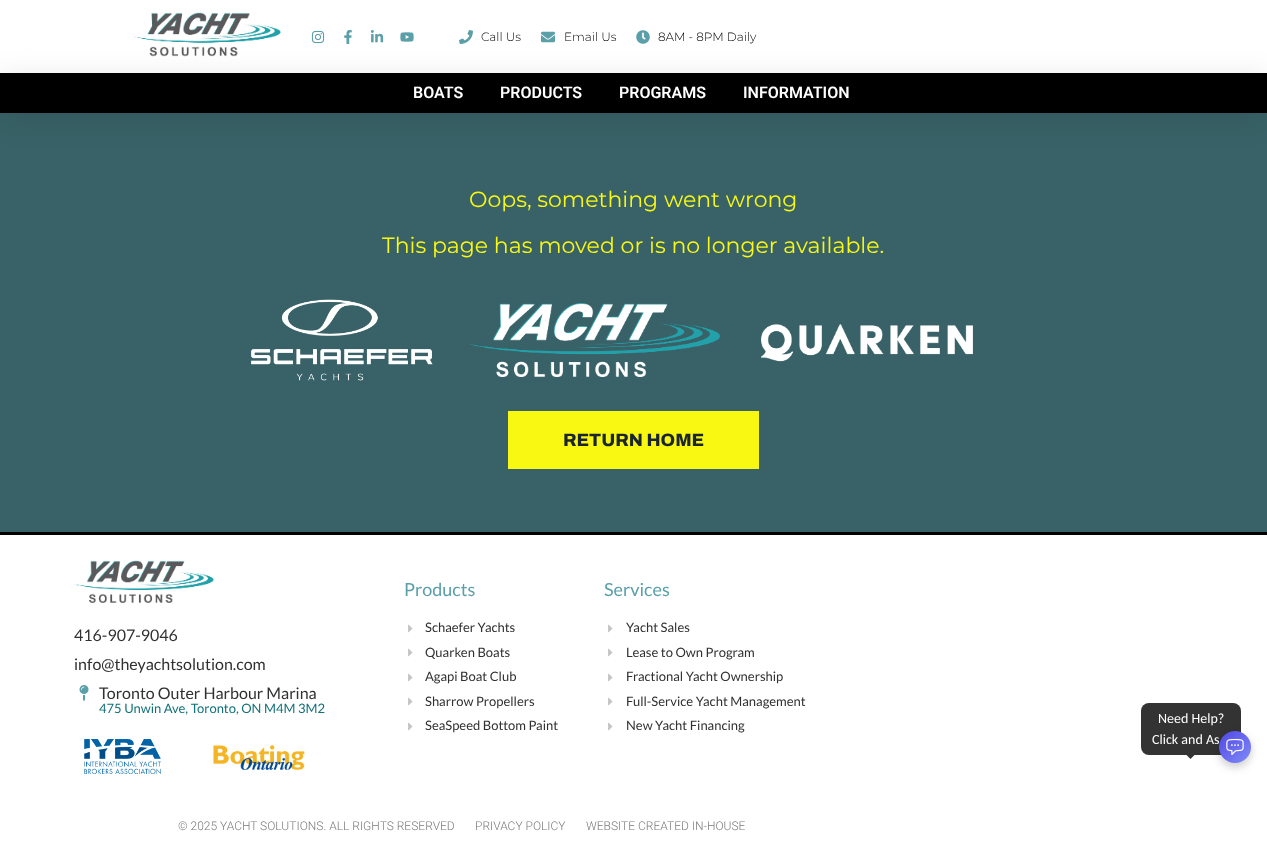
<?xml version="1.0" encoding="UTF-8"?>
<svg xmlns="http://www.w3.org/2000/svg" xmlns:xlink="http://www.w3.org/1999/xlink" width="1267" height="867">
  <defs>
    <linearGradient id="g1" gradientUnits="userSpaceOnUse" x1="1219" y1="731" x2="1251" y2="763"><stop offset="0" stop-color="#4f46e5" /><stop offset="1" stop-color="#818cf8" /></linearGradient>
  </defs>
  <rect width="100%" height="100%" fill="#ffffff" />
  <image x="134" y="12" width="147" height="45" xlink:href="image1.png" />
  <image x="311" y="30" width="14" height="14" xlink:href="image2.png" />
  <image x="344" y="30" width="8" height="14" xlink:href="image3.png" />
  <image x="370" y="30" width="14" height="13" xlink:href="image4.png" />
  <image x="400" y="32" width="14" height="10" xlink:href="image5.png" />
  <image x="459" y="30" width="14" height="14" xlink:href="image6.png" />
  <image x="541" y="31" width="14" height="12" xlink:href="image7.png" />
  <image x="636" y="30" width="14" height="14" xlink:href="image8.png" />
  <rect y="113" width="1267" height="419" fill="#386267" />
  <rect y="78" width="1267" height="40" fill="#000000" fill-opacity="0.1" filter="blur(15px)" />
  <rect y="73" width="1267" height="40" fill="#000000" />
  <image x="251" y="299" width="182" height="82" xlink:href="image9.png" />
  <image x="468" y="303" width="252" height="74" xlink:href="image10.png" />
  <image x="761" y="324" width="212" height="38" xlink:href="image11.png" />
  <rect x="508" y="411" width="251" height="58" fill="#f8f812" />
  <rect y="532" width="1267" height="3" fill="#000000" />
  <image x="74" y="560" width="140" height="43" xlink:href="image12.png" />
  <image x="79" y="685" width="10" height="16" xlink:href="image13.png" />
  <image x="84" y="739" width="77" height="35" xlink:href="image14.png" />
  <image x="213" y="745" width="92" height="25" xlink:href="image15.png" />
  <image x="408" y="624" width="5" height="9" xlink:href="image16.png" />
  <image x="408" y="648" width="5" height="9" xlink:href="image16.png" />
  <image x="408" y="673" width="5" height="9" xlink:href="image16.png" />
  <image x="408" y="697" width="5" height="9" xlink:href="image16.png" />
  <image x="408" y="722" width="5" height="9" xlink:href="image16.png" />
  <image x="608" y="624" width="5" height="9" xlink:href="image16.png" />
  <image x="608" y="648" width="5" height="9" xlink:href="image16.png" />
  <image x="608" y="673" width="5" height="9" xlink:href="image16.png" />
  <image x="608" y="697" width="5" height="9" xlink:href="image16.png" />
  <image x="608" y="722" width="5" height="9" xlink:href="image16.png" />
  <rect x="1141" y="703" width="100" height="52" rx="8" fill="#333333" />
  <path d="M 1186.5 755 l 4 4 l 4 -4 z" fill="#333333" />
  <rect x="1219" y="735" width="32" height="32" rx="16" fill="#000000" fill-opacity="0.2" filter="blur(4px)" />
  <circle cx="1235" cy="747" r="16" fill="url(#g1)" />
  <image x="1226" y="738" width="18" height="18" xlink:href="image17.png" />
  <text x="481" y="41" style="font-family: Montserrat; font-size: 12px; font-weight: 300; fill: #000000">Call Us</text>
  <text x="564" y="41" style="font-family: Montserrat; font-size: 12px; font-weight: 300; fill: #000000">Email Us</text>
  <text x="658" y="41" style="font-family: Montserrat; font-size: 12px; font-weight: 300; fill: #000000">8AM - 8PM Daily</text>
  <text x="413" y="98" style="font-family: Roboto; font-size: 16px; font-weight: 600; fill: #ffffff">BOATS</text>
  <text x="500" y="98" style="font-family: Roboto; font-size: 16px; font-weight: 600; fill: #ffffff">PRODUCTS</text>
  <text x="619" y="98" style="font-family: Roboto; font-size: 16px; font-weight: 600; fill: #ffffff">PROGRAMS</text>
  <text x="743" y="98" style="font-family: Roboto; font-size: 16px; font-weight: 600; fill: #ffffff">INFORMATION</text>
  <text x="469" y="207" style="font-family: Montserrat; font-size: 22px; fill: #f8f812">Oops, something went wrong</text>
  <text x="382" y="253" style="font-family: Montserrat; font-size: 22px; fill: #f8f812">This page has moved or is no longer available.</text>
  <text x="563" y="446" style="font-family: Archivo; font-size: 18px; font-weight: 800; fill: #1b252f">RETURN HOME</text>
  <text x="74" y="641" style="font-family: Lato; font-size: 16px; fill: #313131">416-907-9046</text>
  <text x="74" y="670" style="font-family: Lato; font-size: 16px; fill: #313131">info@theyachtsolution.com</text>
  <text x="99" y="699" style="font-family: Lato; font-size: 16px; fill: #313131">Toronto Outer Harbour Marina</text>
  <text x="99" y="713" style="font-family: Lato; font-size: 13px; fill: #117278">475 Unwin Ave, Toronto, ON M4M 3M2</text>
  <text x="404" y="596" style="font-family: Lato; font-size: 18px; fill: #5b9fa8">Products</text>
  <text x="425" y="632" style="font-family: Lato; font-size: 13px; fill: #313131">Schaefer Yachts</text>
  <text x="425" y="657" style="font-family: Lato; font-size: 13px; fill: #313131">Quarken Boats</text>
  <text x="425" y="681" style="font-family: Lato; font-size: 13px; fill: #313131">Agapi Boat Club</text>
  <text x="425" y="706" style="font-family: Lato; font-size: 13px; fill: #313131">Sharrow Propellers</text>
  <text x="425" y="730" style="font-family: Lato; font-size: 13px; fill: #313131">SeaSpeed Bottom Paint</text>
  <text x="604" y="596" style="font-family: Lato; font-size: 18px; fill: #5b9fa8">Services</text>
  <text x="626" y="632" style="font-family: Lato; font-size: 13px; fill: #313131">Yacht Sales</text>
  <text x="626" y="657" style="font-family: Lato; font-size: 13px; fill: #313131">Lease to Own Program</text>
  <text x="626" y="681" style="font-family: Lato; font-size: 13px; fill: #313131">Fractional Yacht Ownership</text>
  <text x="626" y="706" style="font-family: Lato; font-size: 13px; fill: #313131">Full-Service Yacht Management</text>
  <text x="626" y="730" style="font-family: Lato; font-size: 13px; fill: #313131">New Yacht Financing</text>
  <text x="178" y="830" style="font-family: Roboto; font-size: 12px; font-weight: 300; fill: #7a7a7a">© 2025 YACHT SOLUTIONS. ALL RIGHTS RESERVED</text>
  <text x="475" y="830" style="font-family: Roboto; font-size: 12px; font-weight: 300; fill: #7a7a7a">PRIVACY POLICY</text>
  <text x="586" y="830" style="font-family: Roboto; font-size: 12px; font-weight: 300; fill: #7a7a7a">WEBSITE CREATED IN-HOUSE</text>
  <text x="1158" y="723" style="font-family: Carlito; font-size: 14px; fill: #ffffff">Need Help?</text>
  <text x="1152" y="744" style="font-family: Carlito; font-size: 14px; fill: #ffffff">Click and As</text>
</svg>
